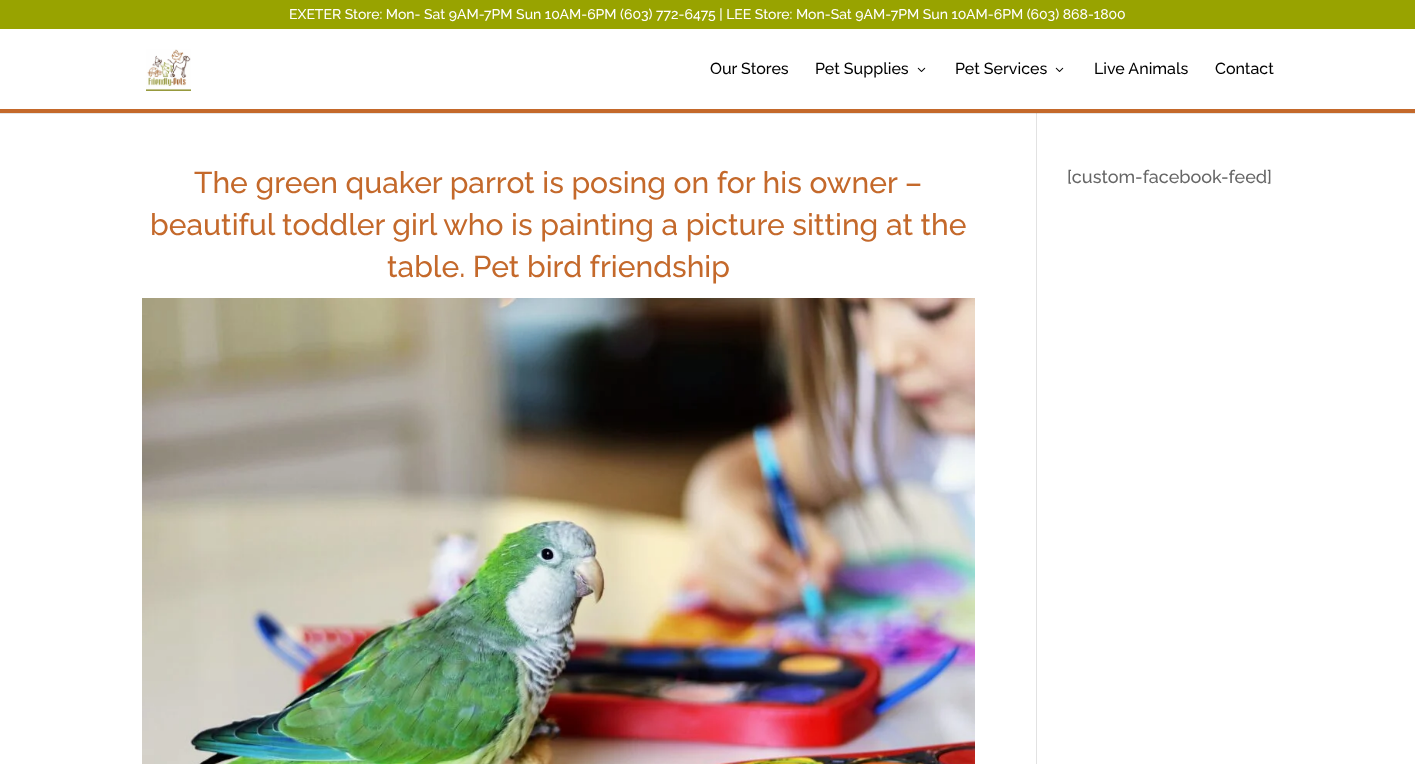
<?xml version="1.0" encoding="UTF-8"?>
<svg xmlns="http://www.w3.org/2000/svg" xmlns:xlink="http://www.w3.org/1999/xlink" width="1415" height="764">
  <rect width="100%" height="100%" fill="#ffffff" />
  <rect y="113" width="1415" height="1" fill="#e6e6e6" />
  <rect y="109" width="1415" height="4" fill="#c4692b" />
  <rect width="1415" height="29" fill="#98a300" />
  <image x="146" y="49" width="45" height="42" xlink:href="image1.png" />
  <image x="917" y="67" width="9" height="5" xlink:href="image2.png" />
  <image x="1055" y="67" width="9" height="5" xlink:href="image2.png" />
  <rect x="1036" y="114" width="1" height="650" fill="#e2e2e2" />
  <rect x="1036" y="113" width="1" height="1" fill="#cbcbcb" />
  <image x="142" y="298" width="833" height="466" xlink:href="image3.png" />
  <text x="289" y="19" style="font-family: Raleway; font-size: 14px; font-weight: 100; fill: #ffffff">EXETER Store: Mon- Sat 9AM-7PM Sun 10AM-6PM (603) 772-6475 | LEE Store: Mon-Sat 9AM-7PM Sun 10AM-6PM (603) 868-1800</text>
  <text x="710" y="74" style="font-family: Raleway; font-size: 16px; font-weight: 100; fill: #000000">Our Stores</text>
  <text x="815" y="74" style="font-family: Raleway; font-size: 16px; font-weight: 100; fill: #000000">Pet Supplies</text>
  <text x="955" y="74" style="font-family: Raleway; font-size: 16px; font-weight: 100; fill: #000000">Pet Services</text>
  <text x="1094" y="74" style="font-family: Raleway; font-size: 16px; font-weight: 100; fill: #000000">Live Animals</text>
  <text x="1215" y="74" style="font-family: Raleway; font-size: 16px; font-weight: 100; fill: #000000">Contact</text>
  <text x="194" y="193" style="font-family: Raleway; font-size: 30px; font-weight: 100; fill: #c4692b">The green quaker parrot is posing on for his owner –</text>
  <text x="150" y="235" style="font-family: Raleway; font-size: 30px; font-weight: 100; fill: #c4692b">beautiful toddler girl who is painting a picture sitting at the</text>
  <text x="387" y="277" style="font-family: Raleway; font-size: 30px; font-weight: 100; fill: #c4692b">table. Pet bird friendship</text>
  <text x="1067" y="183" style="font-family: Raleway; font-size: 18px; font-weight: 100; fill: #666666">[custom-facebook-feed]</text>
</svg>
